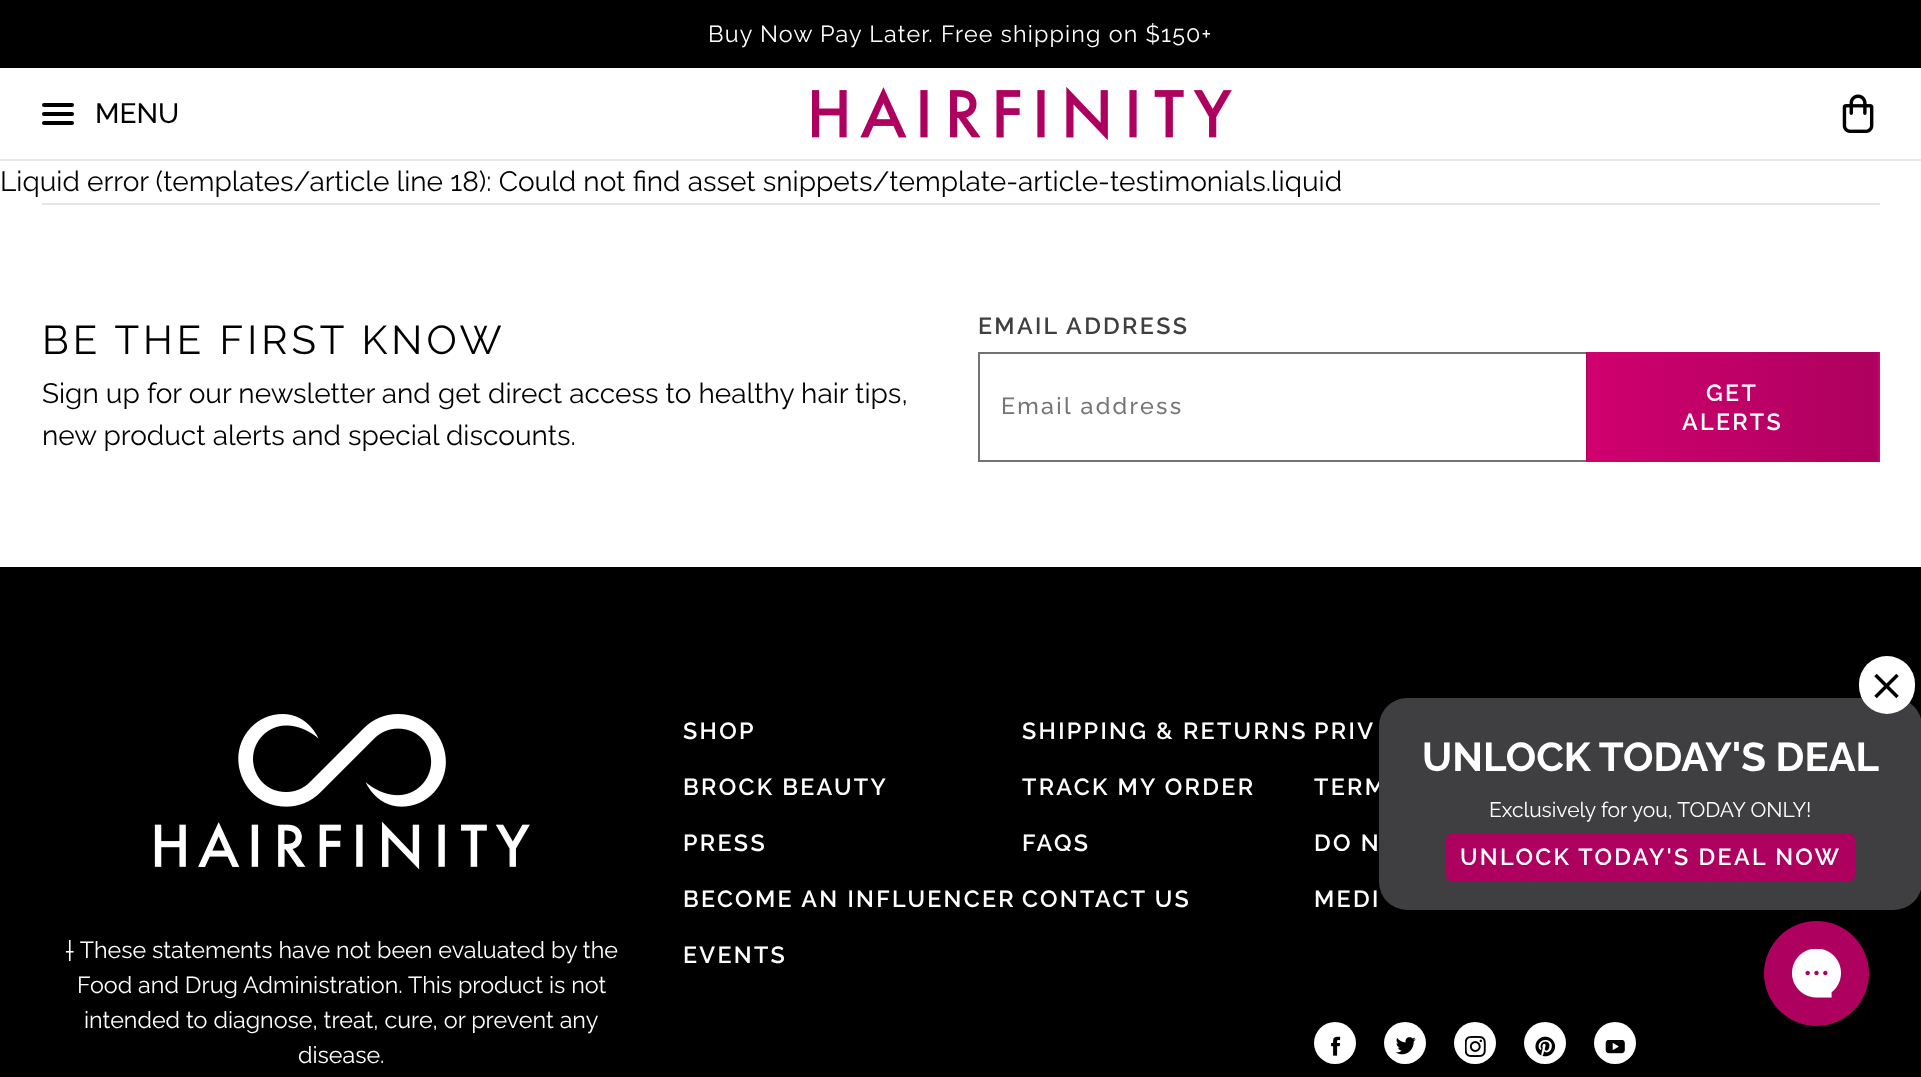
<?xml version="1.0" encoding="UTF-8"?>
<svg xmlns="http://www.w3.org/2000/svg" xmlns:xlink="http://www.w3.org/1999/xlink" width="1921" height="1077">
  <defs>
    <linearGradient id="g1" gradientUnits="userSpaceOnUse" x1="1587" y1="407" x2="1297" y2="407"><stop offset="0" stop-color="#ae005f" /><stop offset="1" stop-color="#d0006f" /></linearGradient>
    <linearGradient id="g2" gradientUnits="userSpaceOnUse" x1="1878" y1="407" x2="1587" y2="407"><stop offset="0" stop-color="#ae005f" /><stop offset="1" stop-color="#d0006f" /></linearGradient>
    <linearGradient id="g3" gradientUnits="userSpaceOnUse" x1="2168" y1="407" x2="1878" y2="407"><stop offset="0" stop-color="#ae005f" /><stop offset="1" stop-color="#d0006f" /></linearGradient>
  </defs>
  <rect width="100%" height="100%" fill="#ffffff" />
  <rect width="1921" height="68" fill="#000000" />
  <rect y="159" width="1921" height="2" fill="#e5e5e6" />
  <rect x="42" y="112" width="32" height="4" rx="2" fill="#000000" />
  <rect x="42" y="103" width="32" height="4" rx="2" fill="#000000" />
  <rect x="42" y="121" width="32" height="4" rx="2" fill="#000000" />
  <image x="812" y="87" width="420" height="54" xlink:href="image1.png" />
  <image x="1842" y="94" width="32" height="39" xlink:href="image2.png" />
  <rect x="42" y="203" width="1838" height="2" fill="#e5e5e6" />
  <rect x="978" y="352" width="608" height="2" fill="#717275" />
  <rect x="978" y="460" width="608" height="2" fill="#717275" />
  <rect x="978" y="352" width="2" height="110" fill="#717275" />
  <rect x="1586" y="352" width="1" height="110" fill="url(#g1)" />
  <rect x="1587" y="352" width="291" height="110" fill="url(#g2)" />
  <rect x="1878" y="352" width="2" height="110" fill="url(#g3)" />
  <rect y="567" width="1921" height="510" fill="#000000" />
  <circle cx="1335" cy="1043" r="21" fill="#ffffff" />
  <image x="1331" y="1036" width="10" height="20" xlink:href="image3.png" />
  <circle cx="1405" cy="1043" r="21" fill="#ffffff" />
  <image x="1395" y="1037" width="21" height="18" xlink:href="image4.png" />
  <circle cx="1475" cy="1043" r="21" fill="#ffffff" />
  <image x="1465" y="1036" width="21" height="21" xlink:href="image5.png" />
  <circle cx="1545" cy="1043" r="21" fill="#ffffff" />
  <image x="1535" y="1036" width="21" height="21" xlink:href="image6.png" />
  <circle cx="1615" cy="1043" r="21" fill="#ffffff" />
  <image x="1605" y="1040" width="20" height="14" xlink:href="image7.png" />
  <image x="154" y="714" width="376" height="156" xlink:href="image8.png" />
  <circle cx="1816.5" cy="973.5" r="52.5" fill="#ae005f" />
  <image x="1792" y="949" width="49" height="49" xlink:href="image10.png" />
  <text x="708" y="42" style="font-family: Raleway; font-size: 23.3px; letter-spacing: 1.15px; fill: #ffffff">Buy Now Pay Later. Free shipping on $150+</text>
  <text x="95" y="123" style="font-family: Raleway; font-size: 28px; font-weight: 500; fill: #000000">MENU</text>
  <text x="0" y="191" style="font-family: Raleway; font-size: 28px; fill: #000000">Liquid error (templates/article line 18): Could not find asset snippets/template-article-testimonials.liquid</text>
  <text x="42" y="354" style="font-family: Raleway; font-size: 40.25px; letter-spacing: 4px; fill: #000000">BE THE FIRST KNOW</text>
  <text x="42" y="403" style="font-family: Raleway; font-size: 28px; fill: #000000">Sign up for our newsletter and get direct access to healthy hair tips,</text>
  <text x="42" y="445" style="font-family: Raleway; font-size: 28px; fill: #000000">new product alerts and special discounts.</text>
  <text x="978" y="334" style="font-family: Raleway; font-size: 23.3px; font-weight: 600; letter-spacing: 2.3px; fill: #3f3f41">EMAIL ADDRESS</text>
  <text x="1001" y="414" style="font-family: Raleway; font-size: 23.3px; font-weight: 500; letter-spacing: 2.3px; fill: #757575">Email address</text>
  <text x="1706" y="401" style="font-family: Raleway; font-size: 23.3px; font-weight: 600; letter-spacing: 2.3px; fill: #ffffff">GET</text>
  <text x="1682" y="430" style="font-family: Raleway; font-size: 23.3px; font-weight: 600; letter-spacing: 2.3px; fill: #ffffff">ALERTS</text>
  <text x="683" y="739" style="font-family: Raleway; font-size: 23.3px; font-weight: 600; letter-spacing: 2.3px; fill: #ffffff">SHOP</text>
  <text x="683" y="795" style="font-family: Raleway; font-size: 23.3px; font-weight: 600; letter-spacing: 2.3px; fill: #ffffff">BROCK BEAUTY</text>
  <text x="683" y="851" style="font-family: Raleway; font-size: 23.3px; font-weight: 600; letter-spacing: 2.3px; fill: #ffffff">PRESS</text>
  <text x="683" y="907" style="font-family: Raleway; font-size: 23.3px; font-weight: 600; letter-spacing: 2.3px; fill: #ffffff">BECOME AN INFLUENCER</text>
  <text x="683" y="963" style="font-family: Raleway; font-size: 23.3px; font-weight: 600; letter-spacing: 2.3px; fill: #ffffff">EVENTS</text>
  <text x="1022" y="739" style="font-family: Raleway; font-size: 23.3px; font-weight: 600; letter-spacing: 2.3px; fill: #ffffff">SHIPPING &amp; RETURNS</text>
  <text x="1022" y="795" style="font-family: Raleway; font-size: 23.3px; font-weight: 600; letter-spacing: 2.3px; fill: #ffffff">TRACK MY ORDER</text>
  <text x="1022" y="851" style="font-family: Raleway; font-size: 23.3px; font-weight: 600; letter-spacing: 2.3px; fill: #ffffff">FAQS</text>
  <text x="1022" y="907" style="font-family: Raleway; font-size: 23.3px; font-weight: 600; letter-spacing: 2.3px; fill: #ffffff">CONTACT US</text>
  <text x="1314" y="739" style="font-family: Raleway; font-size: 23.3px; font-weight: 600; letter-spacing: 2.3px; fill: #ffffff">PRIV</text>
  <text x="1314" y="795" style="font-family: Raleway; font-size: 23.3px; font-weight: 600; letter-spacing: 2.3px; fill: #ffffff">TERM</text>
  <text x="1314" y="851" style="font-family: Raleway; font-size: 23.3px; font-weight: 600; letter-spacing: 2.3px; fill: #ffffff">DO N</text>
  <text x="1314" y="907" style="font-family: Raleway; font-size: 23.3px; font-weight: 600; letter-spacing: 2.3px; fill: #ffffff">MEDI</text>
  <text x="65" y="958" style="font-family: Raleway; font-size: 23.3px; fill: #ffffff">† These statements have not been evaluated by the</text>
  <text x="77" y="993" style="font-family: Raleway; font-size: 23.3px; fill: #ffffff">Food and Drug Administration. This product is not</text>
  <text x="84" y="1028" style="font-family: Raleway; font-size: 23.3px; fill: #ffffff">intended to diagnose, treat, cure, or prevent any</text>
  <text x="298" y="1063" style="font-family: Raleway; font-size: 23.3px; fill: #ffffff">disease.</text>
  <rect x="1379" y="698" width="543" height="212" rx="28" fill="#3f3f41" />
  <rect x="1859" y="656" width="56" height="58" rx="28" fill="#ffffff" />
  <image x="1874" y="673" width="25" height="26" xlink:href="image9.png" />
  <text x="1422" y="771" style="font-family: Raleway; font-size: 40.25px; font-weight: bold; fill: #ffffff">UNLOCK TODAY'S DEAL</text>
  <text x="1489" y="817" style="font-family: Raleway; font-size: 21px; fill: #ffffff">Exclusively for you, TODAY ONLY!</text>
  <rect x="1446" y="833" width="409" height="49" rx="7" fill="#ae005f" />
  <text x="1460" y="865" style="font-family: Raleway; font-size: 23.3px; font-weight: 600; letter-spacing: 2.3px; fill: #ffffff">UNLOCK TODAY'S DEAL NOW</text>
</svg>
